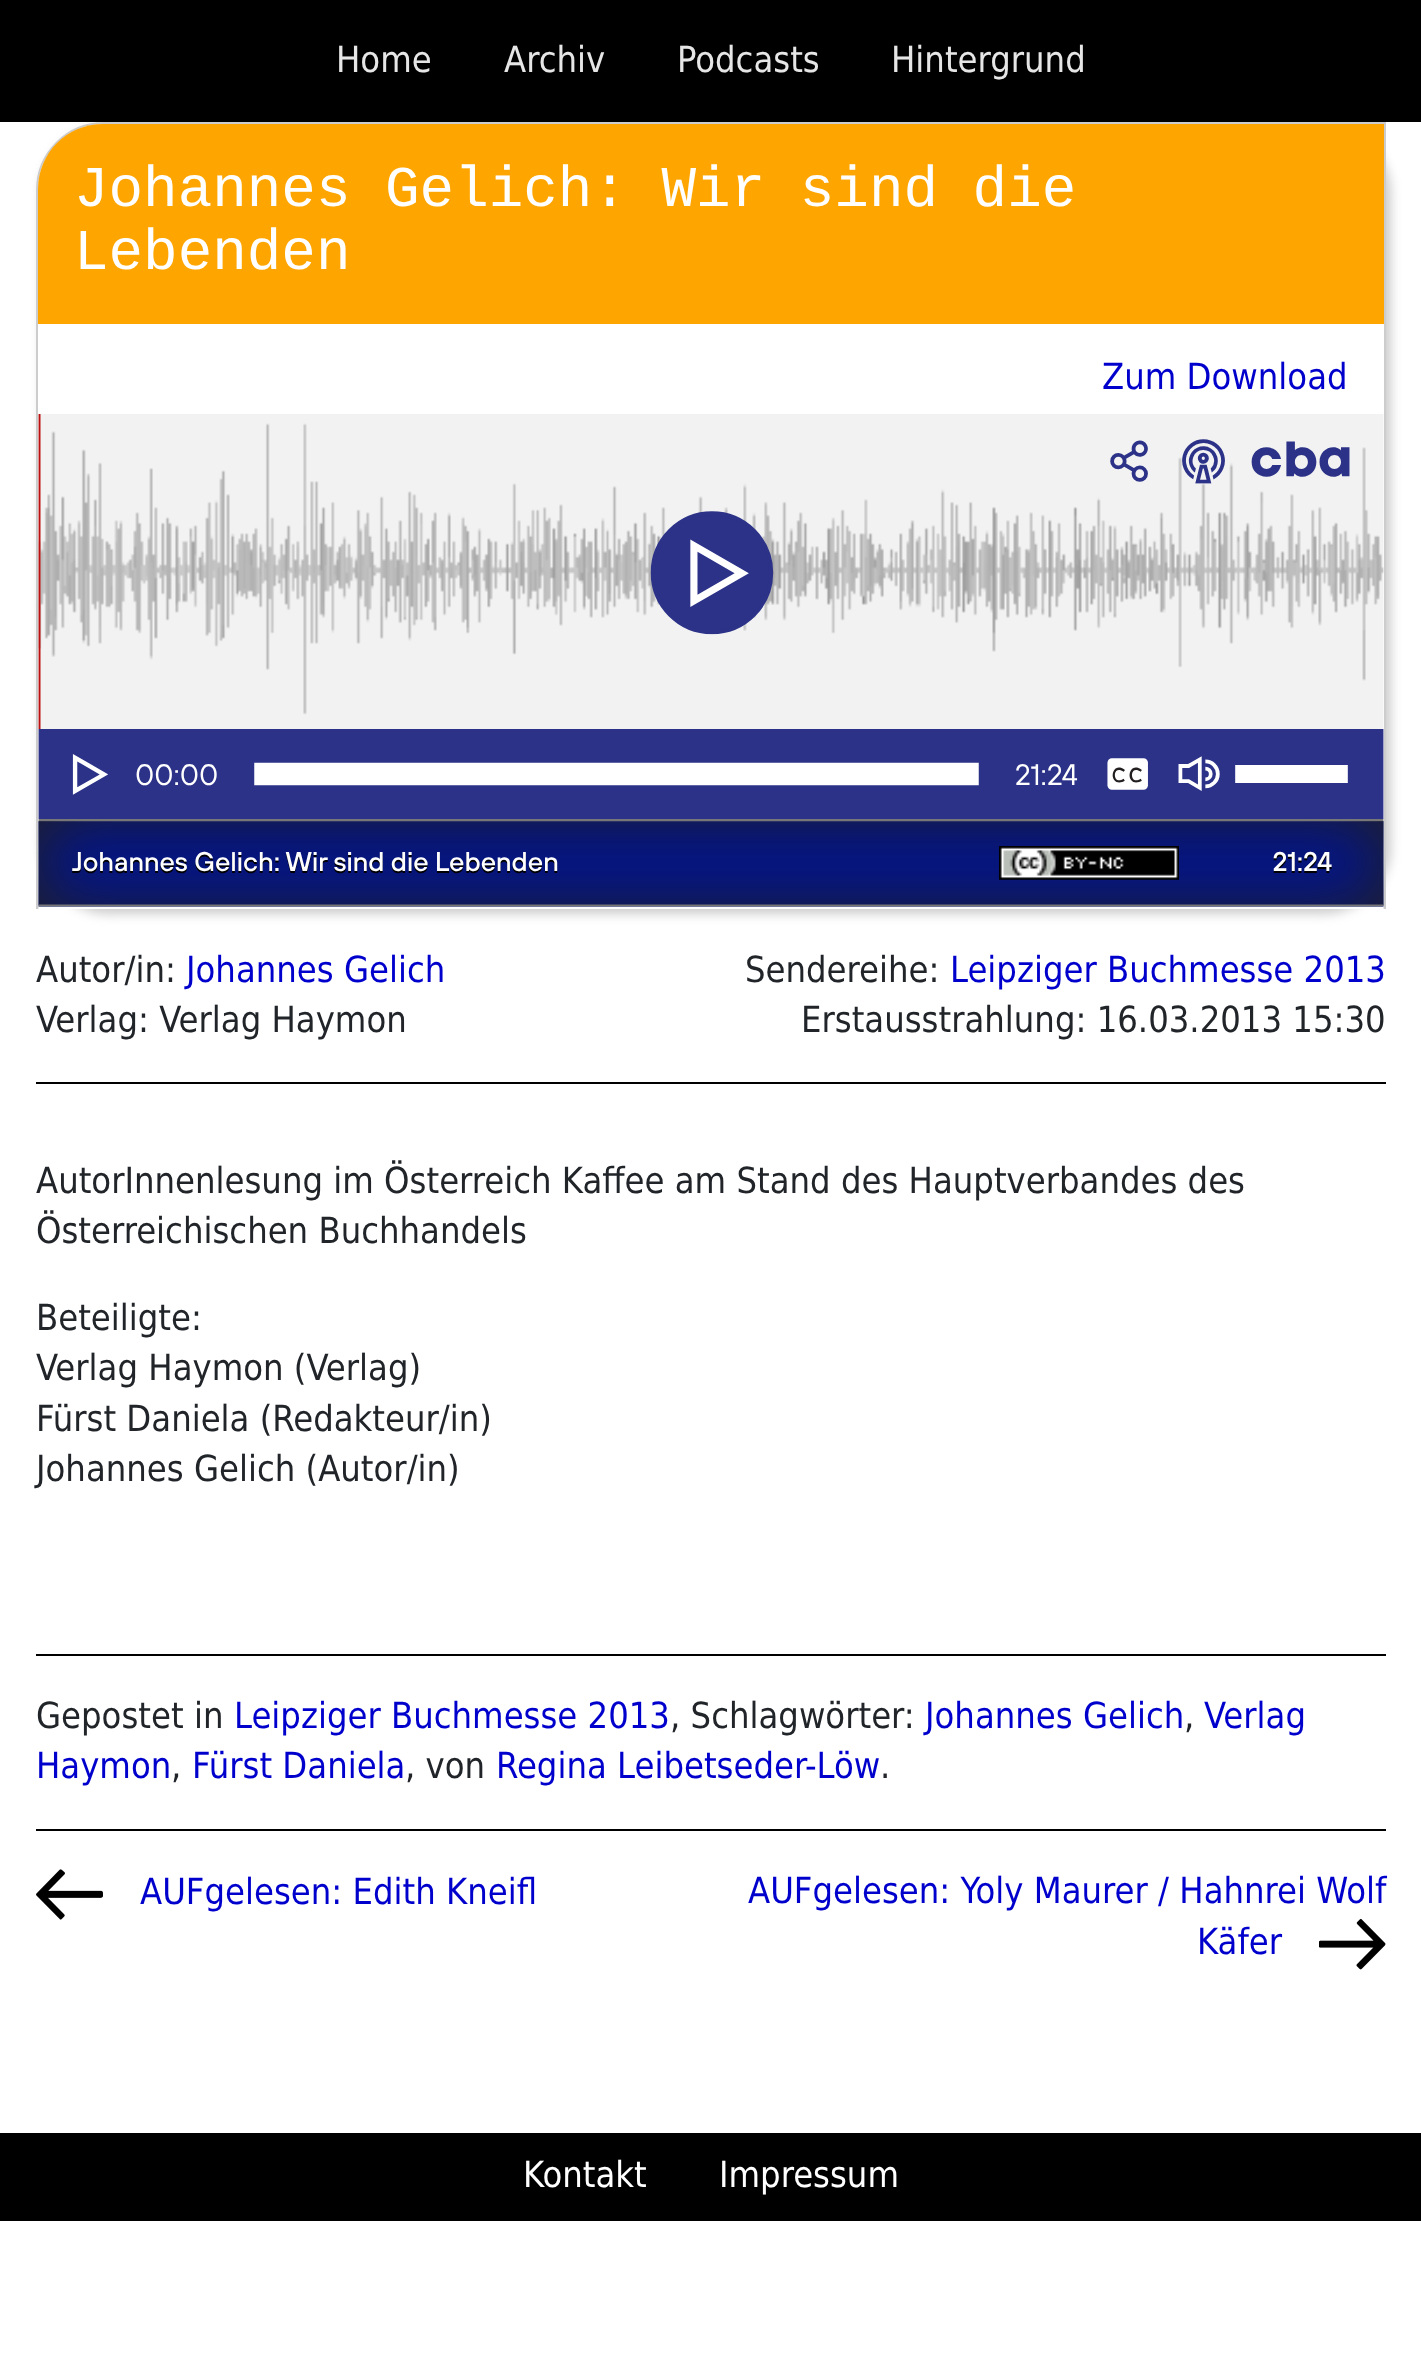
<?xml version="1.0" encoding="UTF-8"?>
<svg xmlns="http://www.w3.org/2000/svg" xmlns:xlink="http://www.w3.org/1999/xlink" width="1421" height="2361">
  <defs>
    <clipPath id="clip1"><path d="M 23 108 h 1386 v 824 h -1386 z m 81 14 h 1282 v 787 h -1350 v -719 c 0 -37.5 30.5 -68 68 -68 z" clip-rule="evenodd" /></clipPath>
  </defs>
  <rect width="100%" height="100%" fill="#ffffff" />
  <g clip-path="url(#clip1)">
    <rect x="41" y="126" width="1350" height="788" rx="68" fill="#cccccc" filter="blur(5.5px)" />
  </g>
  <rect width="1421" height="122" fill="#000000" />
  <path d="M 104 123 h 1281 v 785 h -1348 v -718 c 0 -37 30 -67 67 -67 z" fill="none" stroke="#cccccc" stroke-width="2" />
  <path d="M 103 124 h 1281 v 200 h -1346 v -135 c 0 -36 29 -65 65 -65 z" fill="#ffa500" />
  <image x="38" y="414" width="1346" height="495" xlink:href="image1.png" />
  <rect x="36" y="1082" width="1350" height="2" fill="#000000" />
  <rect x="36" y="1654" width="1350" height="2" fill="#000000" />
  <rect x="36" y="1829" width="1350" height="2" fill="#000000" />
  <image x="36" y="1869" width="67" height="51" xlink:href="image2.png" />
  <image x="1319" y="1918" width="67" height="52" xlink:href="image3.png" />
  <rect y="2133" width="1421" height="88" fill="#000000" />
  <text x="336" y="72" style="font-family: DejaVu Sans; font-size: 36px; fill: #e6e6e6">Home</text>
  <text x="504" y="72" style="font-family: DejaVu Sans; font-size: 36px; fill: #e6e6e6">Archiv</text>
  <text x="677" y="72" style="font-family: DejaVu Sans; font-size: 36px; fill: #e6e6e6">Podcasts</text>
  <text x="891" y="72" style="font-family: DejaVu Sans; font-size: 36px; fill: #e6e6e6">Hintergrund</text>
  <text x="74" y="206" style="font-family: Liberation Mono; font-size: 57.6px; fill: #ffffff">Johannes Gelich: Wir sind die</text>
  <text x="74" y="269" style="font-family: Liberation Mono; font-size: 57.6px; fill: #ffffff">Lebenden</text>
  <text x="1102" y="389" style="font-family: DejaVu Sans; font-size: 36px; fill: #0000cd">Zum Download</text>
  <text x="36" y="982" style="font-family: DejaVu Sans; font-size: 36px; fill: #212529">Autor/in:</text>
  <text x="186" y="982" style="font-family: DejaVu Sans; font-size: 36px; fill: #0000cd">Johannes Gelich</text>
  <text x="36" y="1032" style="font-family: DejaVu Sans; font-size: 36px; fill: #212529">Verlag: Verlag Haymon</text>
  <text x="745" y="982" style="font-family: DejaVu Sans; font-size: 36px; fill: #212529">Sendereihe:</text>
  <text x="950" y="982" style="font-family: DejaVu Sans; font-size: 36px; fill: #0000cd">Leipziger Buchmesse 2013</text>
  <text x="801" y="1032" style="font-family: DejaVu Sans; font-size: 36px; fill: #212529">Erstausstrahlung: 16.03.2013 15:30</text>
  <text x="36" y="1193" style="font-family: DejaVu Sans; font-size: 36px; fill: #212529">AutorInnenlesung im Österreich Kaffee am Stand des Hauptverbandes des</text>
  <text x="36" y="1243" style="font-family: DejaVu Sans; font-size: 36px; fill: #212529">Österreichischen Buchhandels</text>
  <text x="36" y="1330" style="font-family: DejaVu Sans; font-size: 36px; fill: #212529">Beteiligte:</text>
  <text x="36" y="1380" style="font-family: DejaVu Sans; font-size: 36px; fill: #212529">Verlag Haymon (Verlag)</text>
  <text x="36" y="1431" style="font-family: DejaVu Sans; font-size: 36px; fill: #212529">Fürst Daniela (Redakteur/in)</text>
  <text x="36" y="1481" style="font-family: DejaVu Sans; font-size: 36px; fill: #212529">Johannes Gelich (Autor/in)</text>
  <text x="36" y="1728" style="font-family: DejaVu Sans; font-size: 36px; fill: #212529">Gepostet in</text>
  <text x="234" y="1728" style="font-family: DejaVu Sans; font-size: 36px; fill: #0000cd">Leipziger Buchmesse 2013</text>
  <text x="670" y="1728" style="font-family: DejaVu Sans; font-size: 36px; fill: #212529">, Schlagwörter:</text>
  <text x="925" y="1728" style="font-family: DejaVu Sans; font-size: 36px; fill: #0000cd">Johannes Gelich</text>
  <text x="1184" y="1728" style="font-family: DejaVu Sans; font-size: 36px; fill: #212529">,</text>
  <text x="1204" y="1728" style="font-family: DejaVu Sans; font-size: 36px; fill: #0000cd">Verlag</text>
  <text x="36" y="1778" style="font-family: DejaVu Sans; font-size: 36px; fill: #0000cd">Haymon</text>
  <text x="171" y="1778" style="font-family: DejaVu Sans; font-size: 36px; fill: #212529">,</text>
  <text x="192" y="1778" style="font-family: DejaVu Sans; font-size: 36px; fill: #0000cd">Fürst Daniela</text>
  <text x="405" y="1778" style="font-family: DejaVu Sans; font-size: 36px; fill: #212529">, von</text>
  <text x="496" y="1778" style="font-family: DejaVu Sans; font-size: 36px; fill: #0000cd">Regina Leibetseder-Löw</text>
  <text x="880" y="1778" style="font-family: DejaVu Sans; font-size: 36px; fill: #212529">.</text>
  <text x="140" y="1904" style="font-family: DejaVu Sans; font-size: 36px; fill: #0000cd">AUFgelesen: Edith Kneifl</text>
  <text x="748" y="1903" style="font-family: DejaVu Sans; font-size: 36px; fill: #0000cd">AUFgelesen: Yoly Maurer / Hahnrei Wolf</text>
  <text x="1197" y="1954" style="font-family: DejaVu Sans; font-size: 36px; fill: #0000cd">Käfer</text>
  <text x="523" y="2187" style="font-family: DejaVu Sans; font-size: 36px; fill: #ffffff">Kontakt</text>
  <text x="719" y="2187" style="font-family: DejaVu Sans; font-size: 36px; fill: #ffffff">Impressum</text>
</svg>
